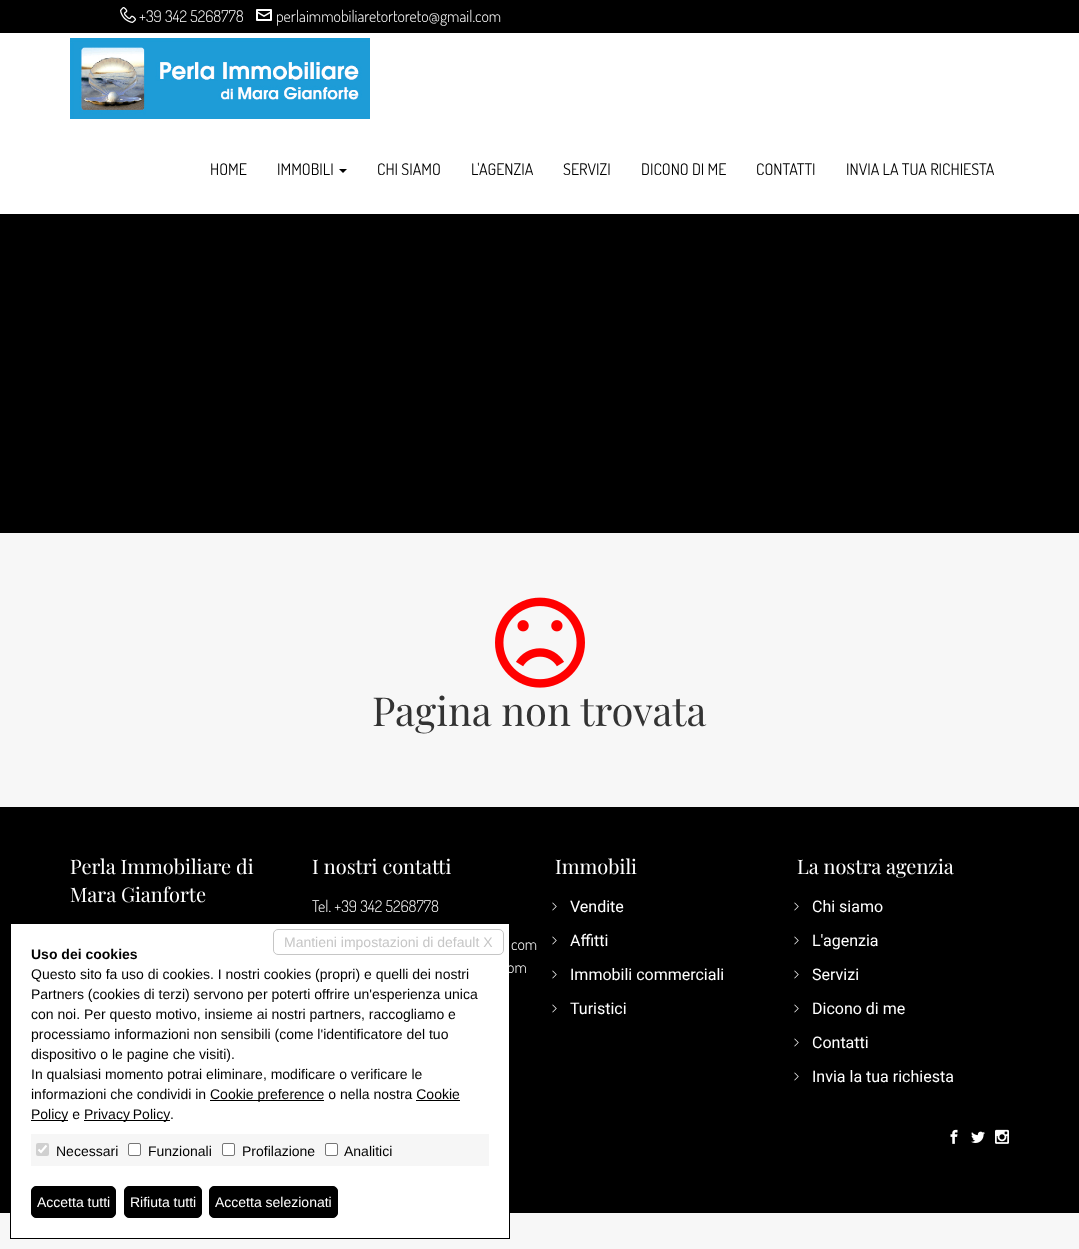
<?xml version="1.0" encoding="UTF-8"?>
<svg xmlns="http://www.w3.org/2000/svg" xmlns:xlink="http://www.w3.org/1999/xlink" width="1079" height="1249">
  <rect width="100%" height="100%" fill="#f7f7f7" />
  <rect width="1079" height="33" fill="#000000" />
  <image x="120" y="7" width="16" height="16" xlink:href="image1.png" />
  <image x="256" y="9" width="16" height="12" xlink:href="image2.png" />
  <rect y="214" width="1079" height="319" fill="#000000" />
  <rect y="33" width="1079" height="181" fill="#ffffff" />
  <image x="70" y="38" width="300" height="81" xlink:href="image3.png" />
  <path d="M 339 169 h 8 l -4 4 z" fill="#000000" />
  <image x="495" y="597" width="90" height="91" xlink:href="image4.png" />
  <rect y="807" width="1079" height="406" fill="#000000" />
  <image x="552" y="902" width="5" height="9" xlink:href="image5.png" />
  <image x="552" y="936" width="5" height="9" xlink:href="image5.png" />
  <image x="552" y="970" width="5" height="9" xlink:href="image5.png" />
  <image x="552" y="1004" width="5" height="9" xlink:href="image5.png" />
  <image x="794" y="902" width="5" height="9" xlink:href="image5.png" />
  <image x="794" y="936" width="5" height="9" xlink:href="image5.png" />
  <image x="794" y="970" width="5" height="9" xlink:href="image5.png" />
  <image x="794" y="1004" width="5" height="9" xlink:href="image5.png" />
  <image x="794" y="1038" width="5" height="9" xlink:href="image5.png" />
  <image x="794" y="1072" width="5" height="9" xlink:href="image5.png" />
  <image x="950" y="1129" width="8" height="15" xlink:href="image6.png" />
  <image x="971" y="1131" width="14" height="12" xlink:href="image7.png" />
  <image x="995" y="1129" width="14" height="15" xlink:href="image8.png" />
  <rect x="10.5" y="923.5" width="499" height="315" fill="#ffffff" stroke="#000000" />
  <rect x="273.5" y="929.5" width="230" height="25" rx="4.5" fill="none" stroke="#c6c6c6" />
  <rect x="210" y="1100" width="114" height="1" fill="#000000" />
  <rect x="416" y="1100" width="44" height="1" fill="#000000" />
  <rect x="31" y="1120" width="37" height="1" fill="#000000" />
  <rect x="84" y="1120" width="86" height="1" fill="#000000" />
  <rect x="31" y="1134" width="458" height="32" fill="#f6f6f6" />
  <rect x="36" y="1143" width="13" height="13" rx="2" fill="#d0d0d0" />
  <path d="M 38.5 1149.5 l 2.5 2.5 l 5.5 -6.5" fill="none" stroke="#ffffff" stroke-width="2.1" />
  <rect x="128.5" y="1143.5" width="12" height="12" rx="1.5" fill="#ffffff" stroke="#767676" />
  <rect x="222.5" y="1143.5" width="12" height="12" rx="1.5" fill="#ffffff" stroke="#767676" />
  <rect x="325.5" y="1143.5" width="12" height="12" rx="1.5" fill="#ffffff" stroke="#767676" />
  <rect x="31.5" y="1186.5" width="84" height="31" rx="4.5" fill="#000000" stroke="#000000" />
  <rect x="124.5" y="1186.5" width="77" height="31" rx="4.5" fill="#000000" stroke="#000000" />
  <rect x="209.5" y="1186.5" width="128" height="31" rx="4.5" fill="#000000" stroke="#000000" />
  <text x="139" y="22" style="font-family: Dosis; font-size: 16px; font-weight: 300; fill: #ffffff">+39 342 5268778</text>
  <text x="276" y="22" style="font-family: Dosis; font-size: 16px; font-weight: 300; fill: #ffffff">perlaimmobiliaretortoreto@gmail.com</text>
  <text x="210" y="175" style="font-family: Dosis; font-size: 16px; fill: #000000">HOME</text>
  <text x="277" y="175" style="font-family: Dosis; font-size: 16px; fill: #000000">IMMOBILI</text>
  <text x="377" y="175" style="font-family: Dosis; font-size: 16px; fill: #000000">CHI SIAMO</text>
  <text x="471" y="175" style="font-family: Dosis; font-size: 16px; fill: #000000">L'AGENZIA</text>
  <text x="563" y="175" style="font-family: Dosis; font-size: 16px; fill: #000000">SERVIZI</text>
  <text x="641" y="175" style="font-family: Dosis; font-size: 16px; fill: #000000">DICONO DI ME</text>
  <text x="756" y="175" style="font-family: Dosis; font-size: 16px; fill: #000000">CONTATTI</text>
  <text x="846" y="175" style="font-family: Dosis; font-size: 16px; fill: #000000">INVIA LA TUA RICHIESTA</text>
  <text x="372" y="726" style="font-family: Playfair Display; font-size: 40px; fill: #333333">Pagina non trovata</text>
  <text x="70" y="874" style="font-family: Playfair Display; font-size: 20px; fill: #ffffff">Perla Immobiliare di</text>
  <text x="70" y="902" style="font-family: Playfair Display; font-size: 20px; fill: #ffffff">Mara Gianforte</text>
  <text x="312" y="874" style="font-family: Playfair Display; font-size: 20px; fill: #ffffff">I nostri contatti</text>
  <text x="312" y="912" style="font-family: Dosis; font-size: 16px; font-weight: 300; fill: #ffffff">Tel. +39 342 5268778</text>
  <text x="511" y="950" style="font-family: Dosis; font-size: 16px; font-weight: 300; fill: #ffffff">com</text>
  <text x="507" y="973" style="font-family: Dosis; font-size: 16px; font-weight: 300; fill: #ffffff">om</text>
  <text x="555" y="874" style="font-family: Playfair Display; font-size: 20px; fill: #ffffff">Immobili</text>
  <text x="570" y="912" style="font-family: Roboto; font-size: 16px; fill: #ffffff">Vendite</text>
  <text x="570" y="946" style="font-family: Roboto; font-size: 16px; fill: #ffffff">Affitti</text>
  <text x="570" y="980" style="font-family: Roboto; font-size: 16px; fill: #ffffff">Immobili commerciali</text>
  <text x="570" y="1014" style="font-family: Roboto; font-size: 16px; fill: #ffffff">Turistici</text>
  <text x="797" y="874" style="font-family: Playfair Display; font-size: 20px; fill: #ffffff">La nostra agenzia</text>
  <text x="812" y="912" style="font-family: Roboto; font-size: 16px; fill: #ffffff">Chi siamo</text>
  <text x="812" y="946" style="font-family: Roboto; font-size: 16px; fill: #ffffff">L'agenzia</text>
  <text x="812" y="980" style="font-family: Roboto; font-size: 16px; fill: #ffffff">Servizi</text>
  <text x="812" y="1014" style="font-family: Roboto; font-size: 16px; fill: #ffffff">Dicono di me</text>
  <text x="812" y="1048" style="font-family: Roboto; font-size: 16px; fill: #ffffff">Contatti</text>
  <text x="812" y="1082" style="font-family: Roboto; font-size: 16px; fill: #ffffff">Invia la tua richiesta</text>
  <text x="284" y="947" style="font-family: Liberation Sans; font-size: 14px; fill: #c6c6c6">Mantieni impostazioni di default X</text>
  <text x="31" y="959" style="font-family: Liberation Sans; font-size: 14px; font-weight: bold; fill: #000000">Uso dei cookies</text>
  <text x="31" y="979" style="font-family: Liberation Sans; font-size: 14px; fill: #000000">Questo sito fa uso di cookies. I nostri cookies (propri) e quelli dei nostri</text>
  <text x="31" y="999" style="font-family: Liberation Sans; font-size: 14px; fill: #000000">Partners (cookies di terzi) servono per poterti offrire un'esperienza unica</text>
  <text x="31" y="1019" style="font-family: Liberation Sans; font-size: 14px; fill: #000000">con noi. Per questo motivo, insieme ai nostri partners, raccogliamo e</text>
  <text x="31" y="1039" style="font-family: Liberation Sans; font-size: 14px; fill: #000000">processiamo informazioni non sensibili (come l'identificatore del tuo</text>
  <text x="31" y="1059" style="font-family: Liberation Sans; font-size: 14px; fill: #000000">dispositivo o le pagine che visiti).</text>
  <text x="31" y="1079" style="font-family: Liberation Sans; font-size: 14px; fill: #000000">In qualsiasi momento potrai eliminare, modificare o verificare le</text>
  <text x="31" y="1099" style="font-family: Liberation Sans; font-size: 14px; fill: #000000">informazioni che condividi in</text>
  <text x="210" y="1099" style="font-family: Liberation Sans; font-size: 14px; fill: #000000">Cookie preference o nella nostra Cookie</text>
  <text x="31" y="1119" style="font-family: Liberation Sans; font-size: 14px; fill: #000000">Policy e</text>
  <text x="84" y="1119" word-spacing="-1" style="font-family: Liberation Sans; font-size: 14px; fill: #000000">Privacy Policy</text>
  <text x="170" y="1119" style="font-family: Liberation Sans; font-size: 14px; fill: #000000">.</text>
  <text x="56" y="1156" style="font-family: Liberation Sans; font-size: 14px; fill: #000000">Necessari</text>
  <text x="148" y="1156" style="font-family: Liberation Sans; font-size: 14px; fill: #000000">Funzionali</text>
  <text x="242" y="1156" style="font-family: Liberation Sans; font-size: 14px; fill: #000000">Profilazione</text>
  <text x="344" y="1156" style="font-family: Liberation Sans; font-size: 14px; fill: #000000">Analitici</text>
  <text x="37" y="1207" style="font-family: Liberation Sans; font-size: 14px; fill: #ffffff">Accetta tutti</text>
  <text x="130" y="1207" style="font-family: Liberation Sans; font-size: 14px; fill: #ffffff">Rifiuta tutti</text>
  <text x="215" y="1207" style="font-family: Liberation Sans; font-size: 14px; fill: #ffffff">Accetta selezionati</text>
</svg>
